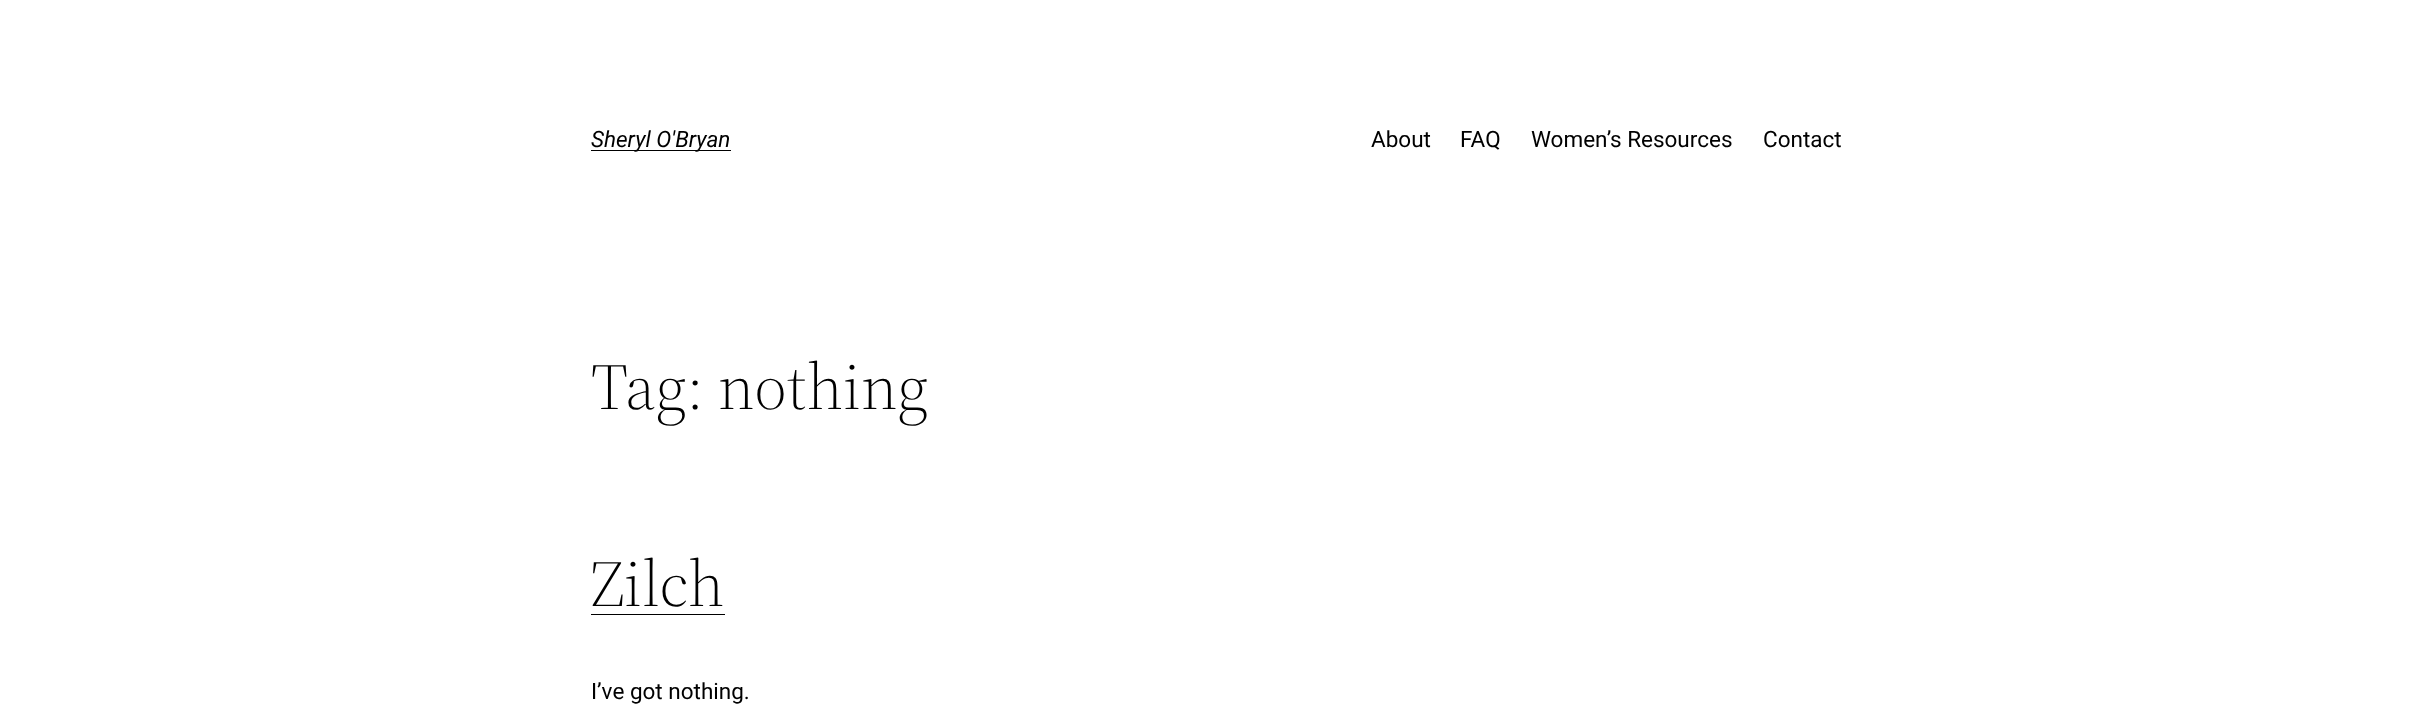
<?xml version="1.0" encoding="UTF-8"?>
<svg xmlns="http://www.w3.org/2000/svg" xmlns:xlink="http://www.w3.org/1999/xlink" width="2432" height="705">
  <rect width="100%" height="100%" fill="#ffffff" />
  <rect x="591" y="150" width="140" height="1" fill="#000000" />
  <rect x="591" y="614" width="134" height="1" fill="#000000" />
  <text x="591" y="147" style="font-family: Roboto; font-size: 22.5px; font-style: italic; fill: #000000">Sheryl O'Bryan</text>
  <text x="1371" y="147" style="font-family: Roboto; font-size: 22.5px; fill: #000000">About</text>
  <text x="1460" y="147" style="font-family: Roboto; font-size: 22.5px; fill: #000000">FAQ</text>
  <text x="1531" y="147" style="font-family: Roboto; font-size: 22.5px; fill: #000000">Women’s Resources</text>
  <text x="1763" y="147" style="font-family: Roboto; font-size: 22.5px; fill: #000000">Contact</text>
  <text x="591" y="409" style="font-family: 'Source Serif 4'; font-size: 65px; font-weight: 300; fill: #000000">Tag: nothing</text>
  <text x="591" y="606" style="font-family: 'Source Serif 4'; font-size: 65px; font-weight: 300; fill: #000000">Zilch</text>
  <text x="591" y="699" style="font-family: Roboto; font-size: 22.5px; fill: #000000">I’ve got nothing.</text>
</svg>
